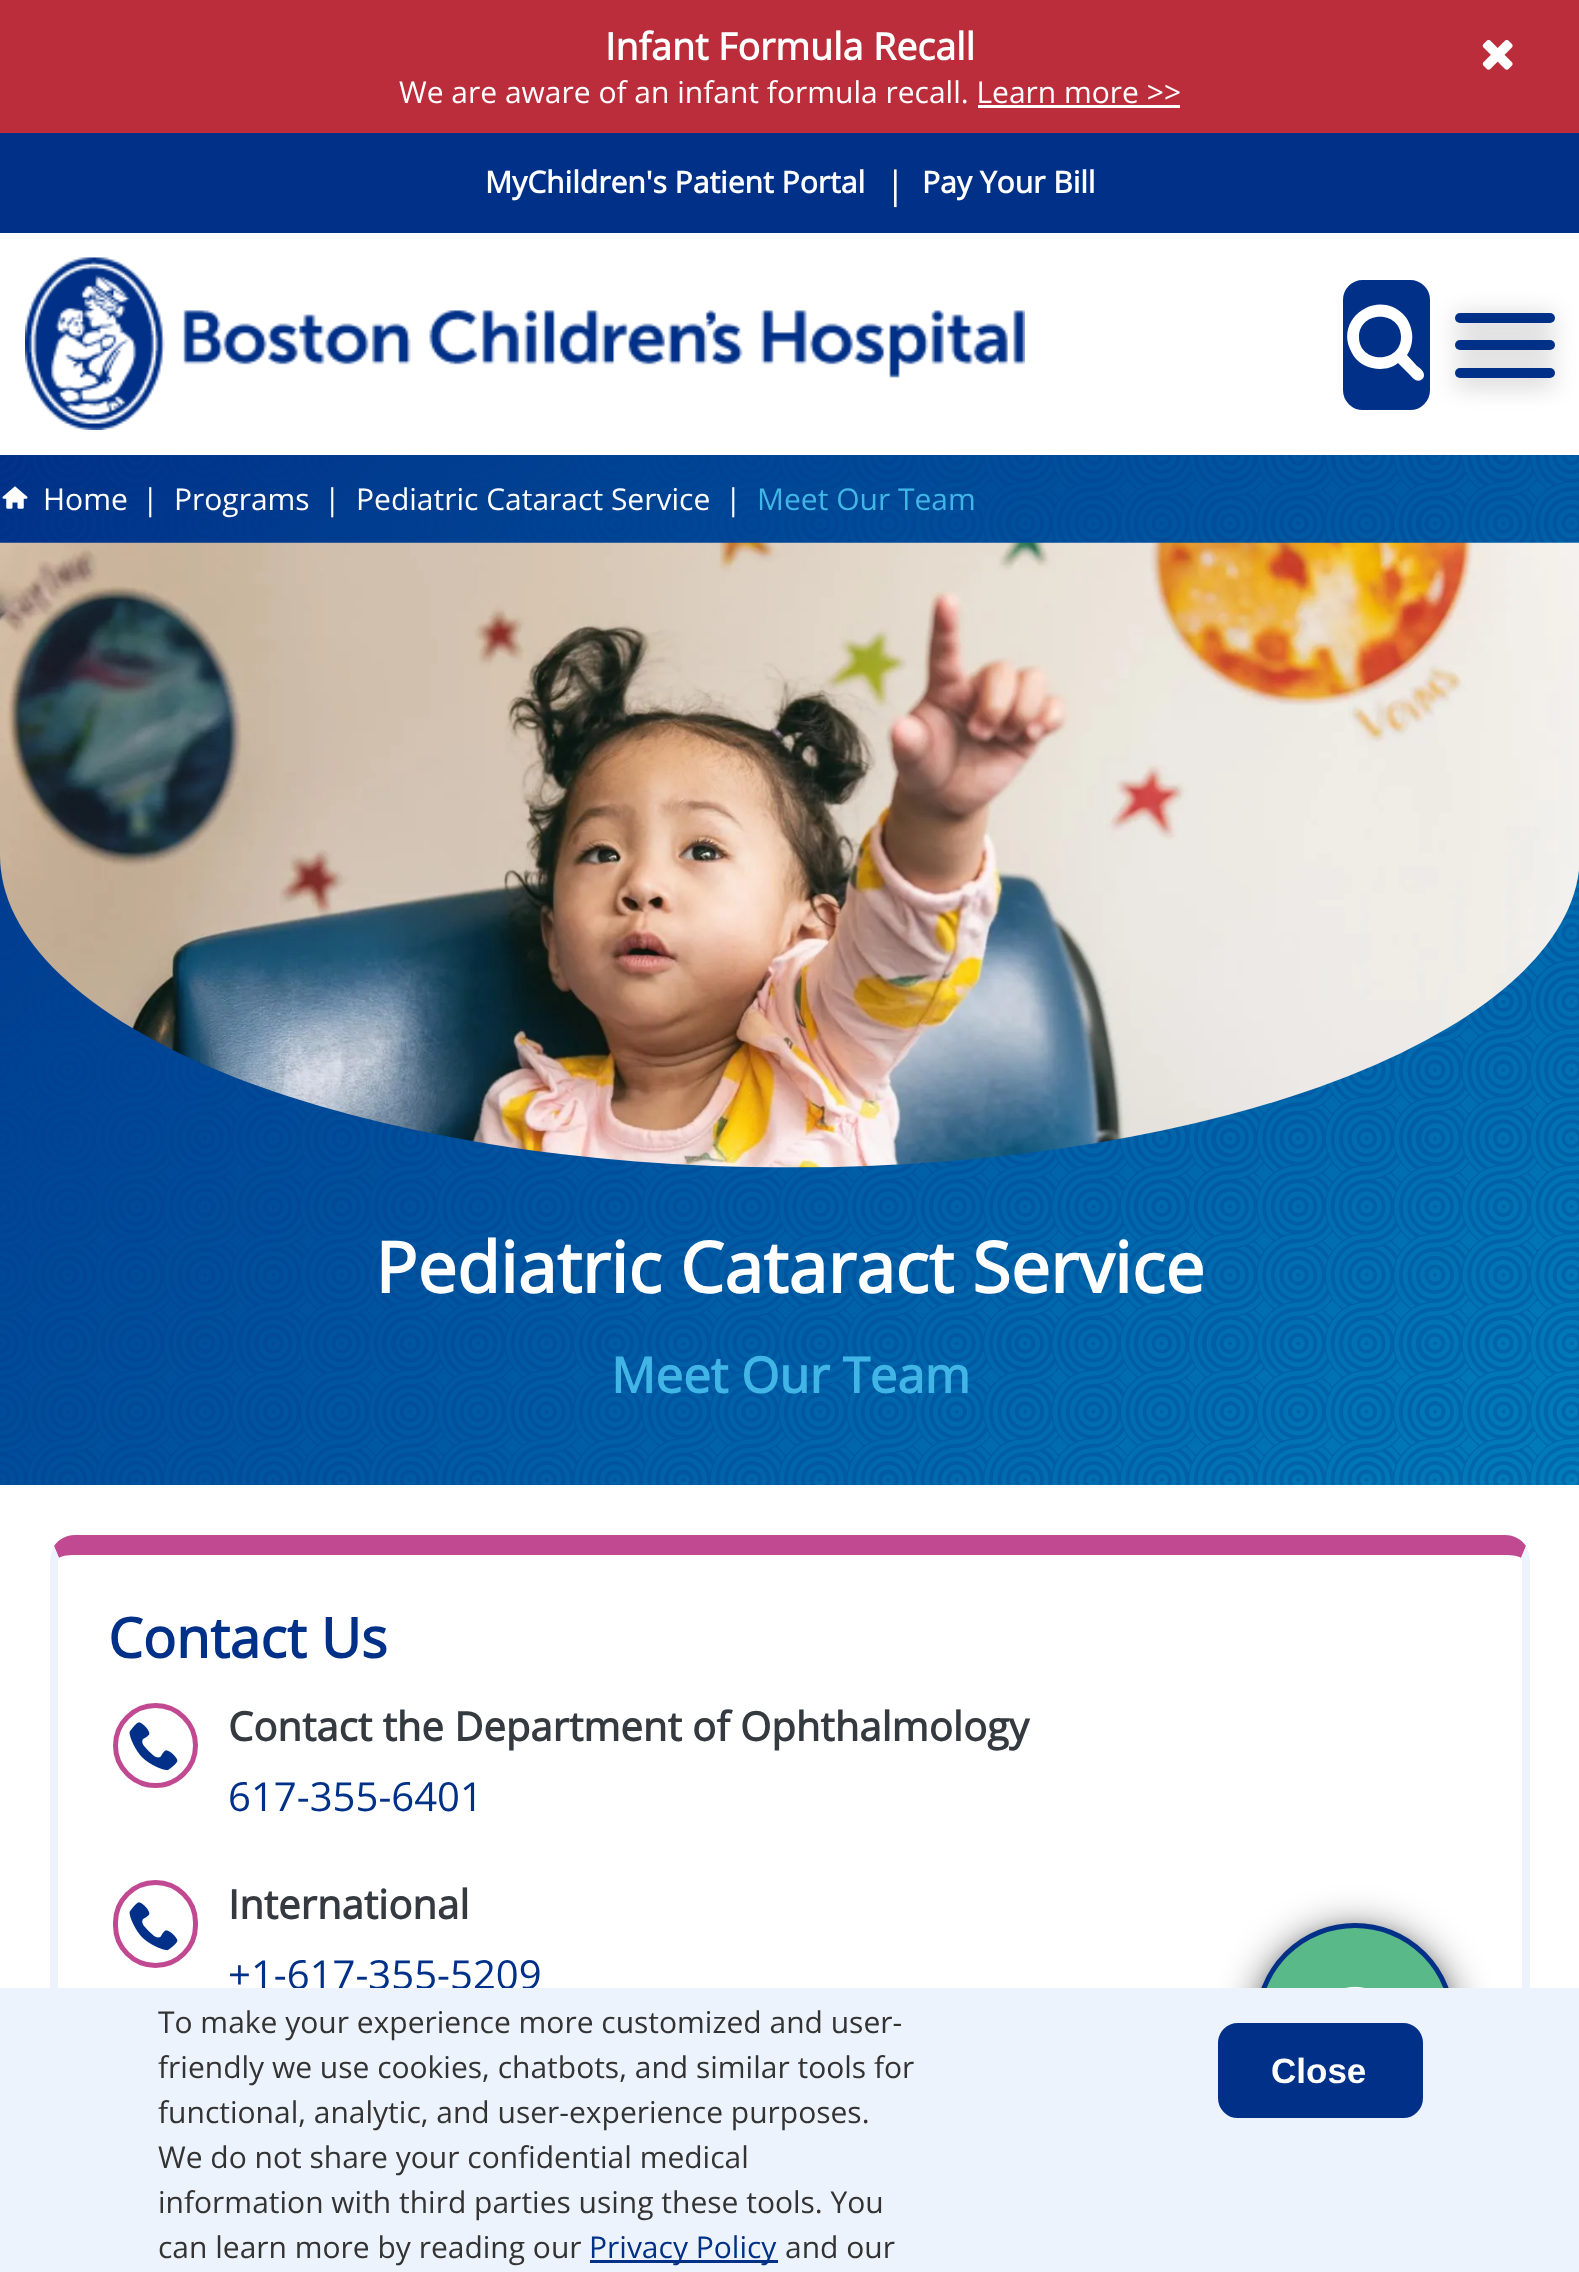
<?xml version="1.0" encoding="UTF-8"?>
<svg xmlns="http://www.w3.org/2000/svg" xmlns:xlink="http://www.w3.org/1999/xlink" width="1579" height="2272">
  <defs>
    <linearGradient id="g1" gradientUnits="userSpaceOnUse" x1="137" y1="318" x2="1443" y2="1623"><stop offset="0" stop-color="#003087" /><stop offset="1" stop-color="#007dba" /></linearGradient>
  </defs>
  <rect width="100%" height="100%" fill="#ffffff" />
  <rect width="1579" height="133" fill="#bb2d3b" />
  <image x="1482" y="39" width="31" height="31" xlink:href="image1.png" />
  <rect x="978" y="105" width="202" height="3" fill="#ffffff" />
  <rect y="133" width="1579" height="100" fill="#003087" />
  <image x="25" y="257" width="1000" height="173" xlink:href="image2.png" />
  <rect x="1345.5" y="282.5" width="82" height="125" rx="17.5" fill="#003087" stroke="#003087" stroke-width="5" />
  <path d="M 1401 337 c 0 -27 -42 -27 -42 0 c 0 27 42 27 42 0 z m 23 38 c 0 2 -1 4 -3 5 c -5 3 -9 -3 -12 -6 l -11 -11 c -7 6 -17 7 -26 5 c -10 -2 -18 -9 -22 -19 c -14 -32 28 -60 53 -35 c 5 5 8 12 9 19 c 1 8 -1 16 -5 22 l 10 11 c 3 2 7 5 7 9 z" fill="#ffffff" />
  <rect x="1455" y="318" width="100" height="10" rx="5" fill="#000000" fill-opacity="0.3" filter="blur(12.5px)" />
  <rect x="1455" y="313" width="100" height="10" rx="5" fill="#003087" />
  <rect x="1455" y="345" width="100" height="10" rx="5" fill="#000000" fill-opacity="0.3" filter="blur(12.5px)" />
  <rect x="1455" y="340" width="100" height="10" rx="5" fill="#003087" />
  <rect x="1455" y="373" width="100" height="10" rx="5" fill="#000000" fill-opacity="0.3" filter="blur(12.5px)" />
  <rect x="1455" y="368" width="100" height="10" rx="5" fill="#003087" />
  <rect y="455" width="1579" height="1030" fill="url(#g1)" />
  <image x="0" y="455" width="1579" height="1030" xlink:href="image3.png" />
  <image x="2" y="486" width="26" height="23" xlink:href="image4.png" />
  <image x="0" y="542" width="1579" height="626" xlink:href="image5.png" />
  <path d="M 75 1535 c -9 0 -16 4 -21 11 l 5 12 c 2 -2 8 -3 16 -3 h 1430 c 8 0 14 1 16 3 l 5 -12 c -5 -7 -12 -11 -21 -11 z" fill="#c14991" />
  <path d="M 1530 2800 v -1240 c 0 -5 -2 -10 -4 -14 l -5 12 l 1 2 v 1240 l -1 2 l 5 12 c 2 -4 4 -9 4 -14 z" fill="#edf3fc" />
  <path d="M 50 1560 v 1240 c 0 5 2 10 4 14 l 5 -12 l -1 -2 v -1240 l 1 -2 l -5 -12 c -2 4 -4 9 -4 14 z" fill="#edf3fc" />
  <image x="129" y="1722" width="49" height="49" xlink:href="image6.png" />
  <circle cx="155.5" cy="1745.5" r="40" fill="none" stroke="#c14991" stroke-width="5" />
  <image x="129" y="1902" width="49" height="49" xlink:href="image6.png" />
  <rect x="115.5" y="1882.5" width="80" height="83" rx="40" fill="none" stroke="#c14991" stroke-width="5" />
  <rect x="1255" y="1925" width="200" height="200" rx="100" fill="#000000" fill-opacity="0.12" filter="blur(6px)" />
  <rect x="1255" y="1930" width="200" height="200" rx="100" fill="#000000" fill-opacity="0.6" filter="blur(20px)" />
  <circle cx="1355" cy="2023" r="97.5" fill="#5ab989" stroke="#003087" stroke-width="5" />
  <image x="1345" y="1986" width="20" height="2" xlink:href="image7.png" />
  <text x="605" y="60" style="font-family: Open Sans; font-size: 37.5px; font-weight: bold; fill: #ffffff">Infant Formula Recall</text>
  <text x="399" y="103" style="font-family: Open Sans; font-size: 30px; fill: #ffffff">We are aware of an infant formula recall. Learn more &gt;&gt;</text>
  <text x="485" y="193" style="font-family: Open Sans; font-size: 30.1px; font-weight: bold; fill: #ffffff">MyChildren's Patient Portal</text>
  <text x="885" y="198" style="font-family: Open Sans; font-size: 37.5px; fill: #ffffff">|</text>
  <text x="922" y="193" style="font-family: Open Sans; font-size: 30.1px; font-weight: bold; fill: #ffffff">Pay Your Bill</text>
  <text x="43" y="510" style="font-family: Open Sans; font-size: 30px; fill: #ffffff">Home</text>
  <text x="142" y="510" style="font-family: Open Sans; font-size: 30px; fill: #ffffff">|</text>
  <text x="174" y="510" style="font-family: Open Sans; font-size: 30px; fill: #ffffff">Programs</text>
  <text x="324" y="510" style="font-family: Open Sans; font-size: 30px; fill: #ffffff">|</text>
  <text x="356" y="510" style="font-family: Open Sans; font-size: 30px; fill: #ffffff">Pediatric Cataract Service</text>
  <text x="725" y="510" style="font-family: Open Sans; font-size: 30px; fill: #ffffff">|</text>
  <text x="757" y="510" style="font-family: Open Sans; font-size: 30px; fill: #41b6e6">Meet Our Team</text>
  <text x="375" y="1293" style="font-family: Open Sans; font-size: 70.25px; font-weight: bold; fill: #ffffff">Pediatric Cataract Service</text>
  <text x="611" y="1393" style="font-family: Open Sans; font-size: 49.25px; font-weight: bold; fill: #41b6e6">Meet Our Team</text>
  <text x="108" y="1658" style="font-family: Open Sans; font-size: 55.25px; font-weight: bold; fill: #003087">Contact Us</text>
  <text x="228" y="1741" style="font-family: Open Sans; font-size: 40.1px; font-weight: bold; fill: #343a40">Contact the Department of Ophthalmology</text>
  <text x="228" y="1811" style="font-family: Open Sans; font-size: 40.1px; fill: #003087">617-355-6401</text>
  <text x="228" y="1919" style="font-family: Open Sans; font-size: 40.1px; font-weight: bold; fill: #343a40">International</text>
  <text x="228" y="1989" style="font-family: Open Sans; font-size: 40.1px; fill: #003087">+1-617-355-5209</text>
  <rect y="1988" width="1579" height="284" fill="#edf3fc" />
  <text x="158" y="2033" style="font-family: Open Sans; font-size: 30px; fill: #333333">To make your experience more customized and user-</text>
  <text x="158" y="2078" style="font-family: Open Sans; font-size: 30px; fill: #333333">friendly we use cookies, chatbots, and similar tools for</text>
  <text x="158" y="2123" style="font-family: Open Sans; font-size: 30px; fill: #333333">functional, analytic, and user-experience purposes.</text>
  <text x="158" y="2168" style="font-family: Open Sans; font-size: 30px; fill: #333333">We do not share your confidential medical</text>
  <text x="158" y="2213" style="font-family: Open Sans; font-size: 30px; fill: #333333">information with third parties using these tools. You</text>
  <text x="158" y="2258" style="font-family: Open Sans; font-size: 30px; fill: #333333">can learn more by reading our</text>
  <rect x="590" y="2260" width="188" height="3" fill="#003087" />
  <text x="589" y="2258" style="font-family: Open Sans; font-size: 30px; fill: #003087">Privacy Policy</text>
  <text x="785" y="2258" style="font-family: Open Sans; font-size: 30px; fill: #333333">and our</text>
  <rect x="1220.5" y="2025.5" width="200" height="90" rx="17.5" fill="#003087" stroke="#003087" stroke-width="5" />
  <text x="1271" y="2083" style="font-family: Liberation Sans; font-size: 35px; font-weight: bold; fill: #ffffff">Close</text>
</svg>
